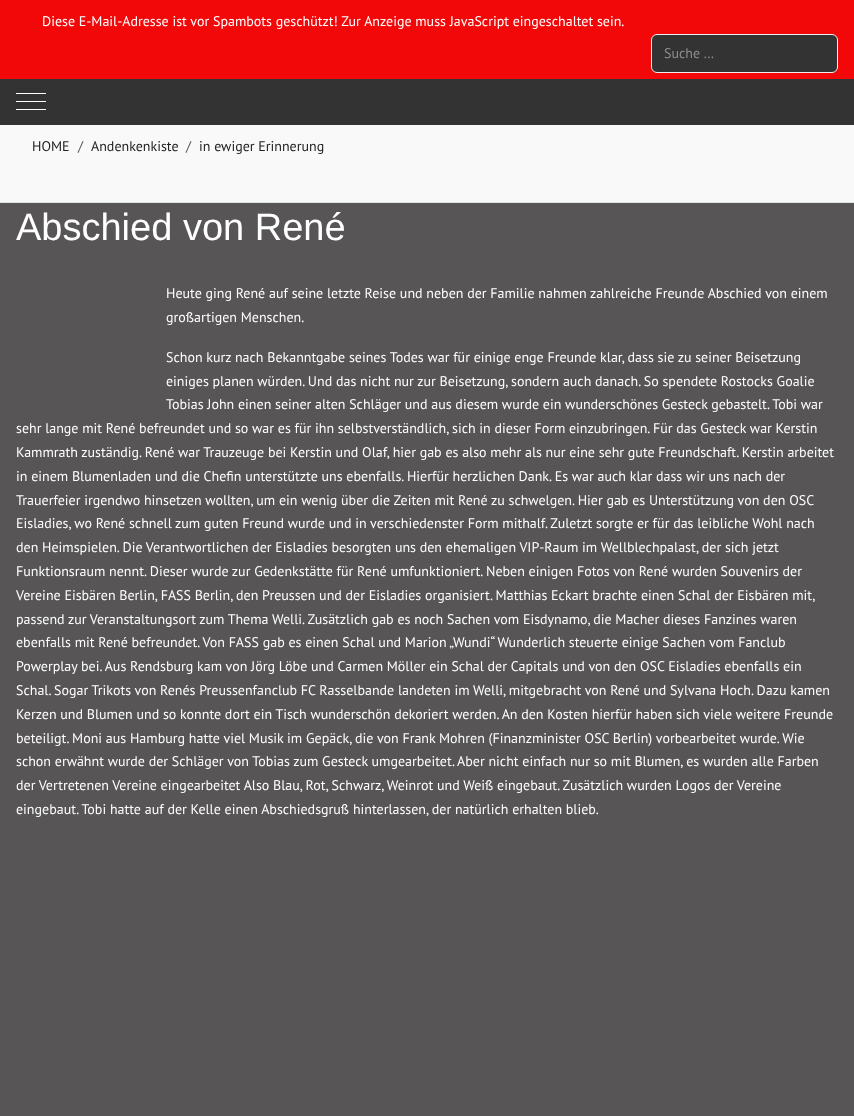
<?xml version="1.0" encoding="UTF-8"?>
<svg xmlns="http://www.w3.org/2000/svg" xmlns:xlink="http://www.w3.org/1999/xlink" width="854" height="1116">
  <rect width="100%" height="100%" fill="#333333" />
  <rect width="854" height="79" fill="#f20808" />
  <rect x="651.5" y="34.5" width="186" height="38" rx="5.5" fill="#333333" stroke="#eeeeee" />
  <rect x="16" y="101" width="30" height="1" fill="#ffffff" />
  <rect x="16" y="93" width="30" height="1" fill="#ffffff" />
  <rect x="16" y="109" width="30" height="1" fill="#ffffff" />
  <rect y="125" width="854" height="77" fill="#f9f9f9" />
  <rect y="202" width="854" height="1" fill="#dee2e6" />
  <rect y="203" width="854" height="913" fill="#575555" />
  <text x="42" y="26" style="font-family: PT Sans; font-size: 14px; fill: #ffffff">Diese E-Mail-Adresse ist vor Spambots geschützt! Zur Anzeige muss JavaScript eingeschaltet sein.</text>
  <text x="664" y="58" style="font-family: PT Sans; font-size: 14px; fill: #8e8e8e">Suche …</text>
  <text x="32" y="151" style="font-family: PT Sans; font-size: 14px; fill: #222222">HOME</text>
  <text x="78" y="151" style="font-family: PT Sans; font-size: 14px; fill: #575a5d">/</text>
  <text x="91" y="151" style="font-family: PT Sans; font-size: 14px; fill: #222222">Andenkenkiste</text>
  <text x="186" y="151" style="font-family: PT Sans; font-size: 14px; fill: #575a5d">/</text>
  <text x="199" y="151" style="font-family: PT Sans; font-size: 14px; fill: #222222">in ewiger Erinnerung</text>
  <text x="16" y="240" style="font-family: Liberation Sans; font-size: 38px; fill: #ffffff">Abschied von René</text>
  <text x="166" y="298" style="font-family: PT Sans; font-size: 14px; fill: #ffffff">Heute ging René auf seine letzte Reise und neben der Familie nahmen zahlreiche Freunde Abschied von einem</text>
  <text x="166" y="322" style="font-family: PT Sans; font-size: 14px; fill: #ffffff">großartigen Menschen.</text>
  <text x="166" y="362" style="font-family: PT Sans; font-size: 14px; fill: #ffffff">Schon kurz nach Bekanntgabe seines Todes war für einige enge Freunde klar, dass sie zu seiner Beisetzung</text>
  <text x="166" y="386" style="font-family: PT Sans; font-size: 14px; fill: #ffffff">einiges planen würden. Und das nicht nur zur Beisetzung, sondern auch danach. So spendete Rostocks Goalie</text>
  <text x="166" y="409" style="font-family: PT Sans; font-size: 14px; fill: #ffffff">Tobias John einen seiner alten Schläger und aus diesem wurde ein wunderschönes Gesteck gebastelt. Tobi war</text>
  <text x="16" y="433" style="font-family: PT Sans; font-size: 14px; fill: #ffffff">sehr lange mit René befreundet und so war es für ihn selbstverständlich, sich in dieser Form einzubringen. Für das Gesteck war Kerstin</text>
  <text x="16" y="457" style="font-family: PT Sans; font-size: 14px; fill: #ffffff">Kammrath zuständig. René war Trauzeuge bei Kerstin und Olaf, hier gab es also mehr als nur eine sehr gute Freundschaft. Kerstin arbeitet</text>
  <text x="16" y="481" style="font-family: PT Sans; font-size: 14px; fill: #ffffff">in einem Blumenladen und die Chefin unterstützte uns ebenfalls. Hierfür herzlichen Dank. Es war auch klar dass wir uns nach der</text>
  <text x="16" y="505" style="font-family: PT Sans; font-size: 14px; fill: #ffffff">Trauerfeier irgendwo hinsetzen wollten, um ein wenig über die Zeiten mit René zu schwelgen. Hier gab es Unterstützung von den OSC</text>
  <text x="16" y="528" style="font-family: PT Sans; font-size: 14px; fill: #ffffff">Eisladies, wo René schnell zum guten Freund wurde und in verschiedenster Form mithalf. Zuletzt sorgte er für das leibliche Wohl nach</text>
  <text x="16" y="552" style="font-family: PT Sans; font-size: 14px; fill: #ffffff">den Heimspielen. Die Verantwortlichen der Eisladies besorgten uns den ehemaligen VIP-Raum im Wellblechpalast, der sich jetzt</text>
  <text x="16" y="576" style="font-family: PT Sans; font-size: 14px; fill: #ffffff">Funktionsraum nennt. Dieser wurde zur Gedenkstätte für René umfunktioniert. Neben einigen Fotos von René wurden Souvenirs der</text>
  <text x="16" y="600" style="font-family: PT Sans; font-size: 14px; fill: #ffffff">Vereine Eisbären Berlin, FASS Berlin, den Preussen und der Eisladies organisiert. Matthias Eckart brachte einen Schal der Eisbären mit,</text>
  <text x="16" y="624" style="font-family: PT Sans; font-size: 14px; fill: #ffffff">passend zur Veranstaltungsort zum Thema Welli. Zusätzlich gab es noch Sachen vom Eisdynamo, die Macher dieses Fanzines waren</text>
  <text x="16" y="647" style="font-family: PT Sans; font-size: 14px; fill: #ffffff">ebenfalls mit René befreundet. Von FASS gab es einen Schal und Marion „Wundi“ Wunderlich steuerte einige Sachen vom Fanclub</text>
  <text x="16" y="671" style="font-family: PT Sans; font-size: 14px; fill: #ffffff">Powerplay bei. Aus Rendsburg kam von Jörg Löbe und Carmen Möller ein Schal der Capitals und von den OSC Eisladies ebenfalls ein</text>
  <text x="16" y="695" style="font-family: PT Sans; font-size: 14px; fill: #ffffff">Schal. Sogar Trikots von Renés Preussenfanclub FC Rasselbande landeten im Welli, mitgebracht von René und Sylvana Hoch. Dazu kamen</text>
  <text x="16" y="719" style="font-family: PT Sans; font-size: 14px; fill: #ffffff">Kerzen und Blumen und so konnte dort ein Tisch wunderschön dekoriert werden. An den Kosten hierfür haben sich viele weitere Freunde</text>
  <text x="16" y="743" style="font-family: PT Sans; font-size: 14px; fill: #ffffff">beteiligt. Moni aus Hamburg hatte viel Musik im Gepäck, die von Frank Mohren (Finanzminister OSC Berlin) vorbearbeitet wurde. Wie</text>
  <text x="16" y="766" style="font-family: PT Sans; font-size: 14px; fill: #ffffff">schon erwähnt wurde der Schläger von Tobias zum Gesteck umgearbeitet. Aber nicht einfach nur so mit Blumen, es wurden alle Farben</text>
  <text x="16" y="790" style="font-family: PT Sans; font-size: 14px; fill: #ffffff">der Vertretenen Vereine eingearbeitet Also Blau, Rot, Schwarz, Weinrot und Weiß eingebaut. Zusätzlich wurden Logos der Vereine</text>
  <text x="16" y="814" style="font-family: PT Sans; font-size: 14px; fill: #ffffff">eingebaut. Tobi hatte auf der Kelle einen Abschiedsgruß hinterlassen, der natürlich erhalten blieb.</text>
</svg>
